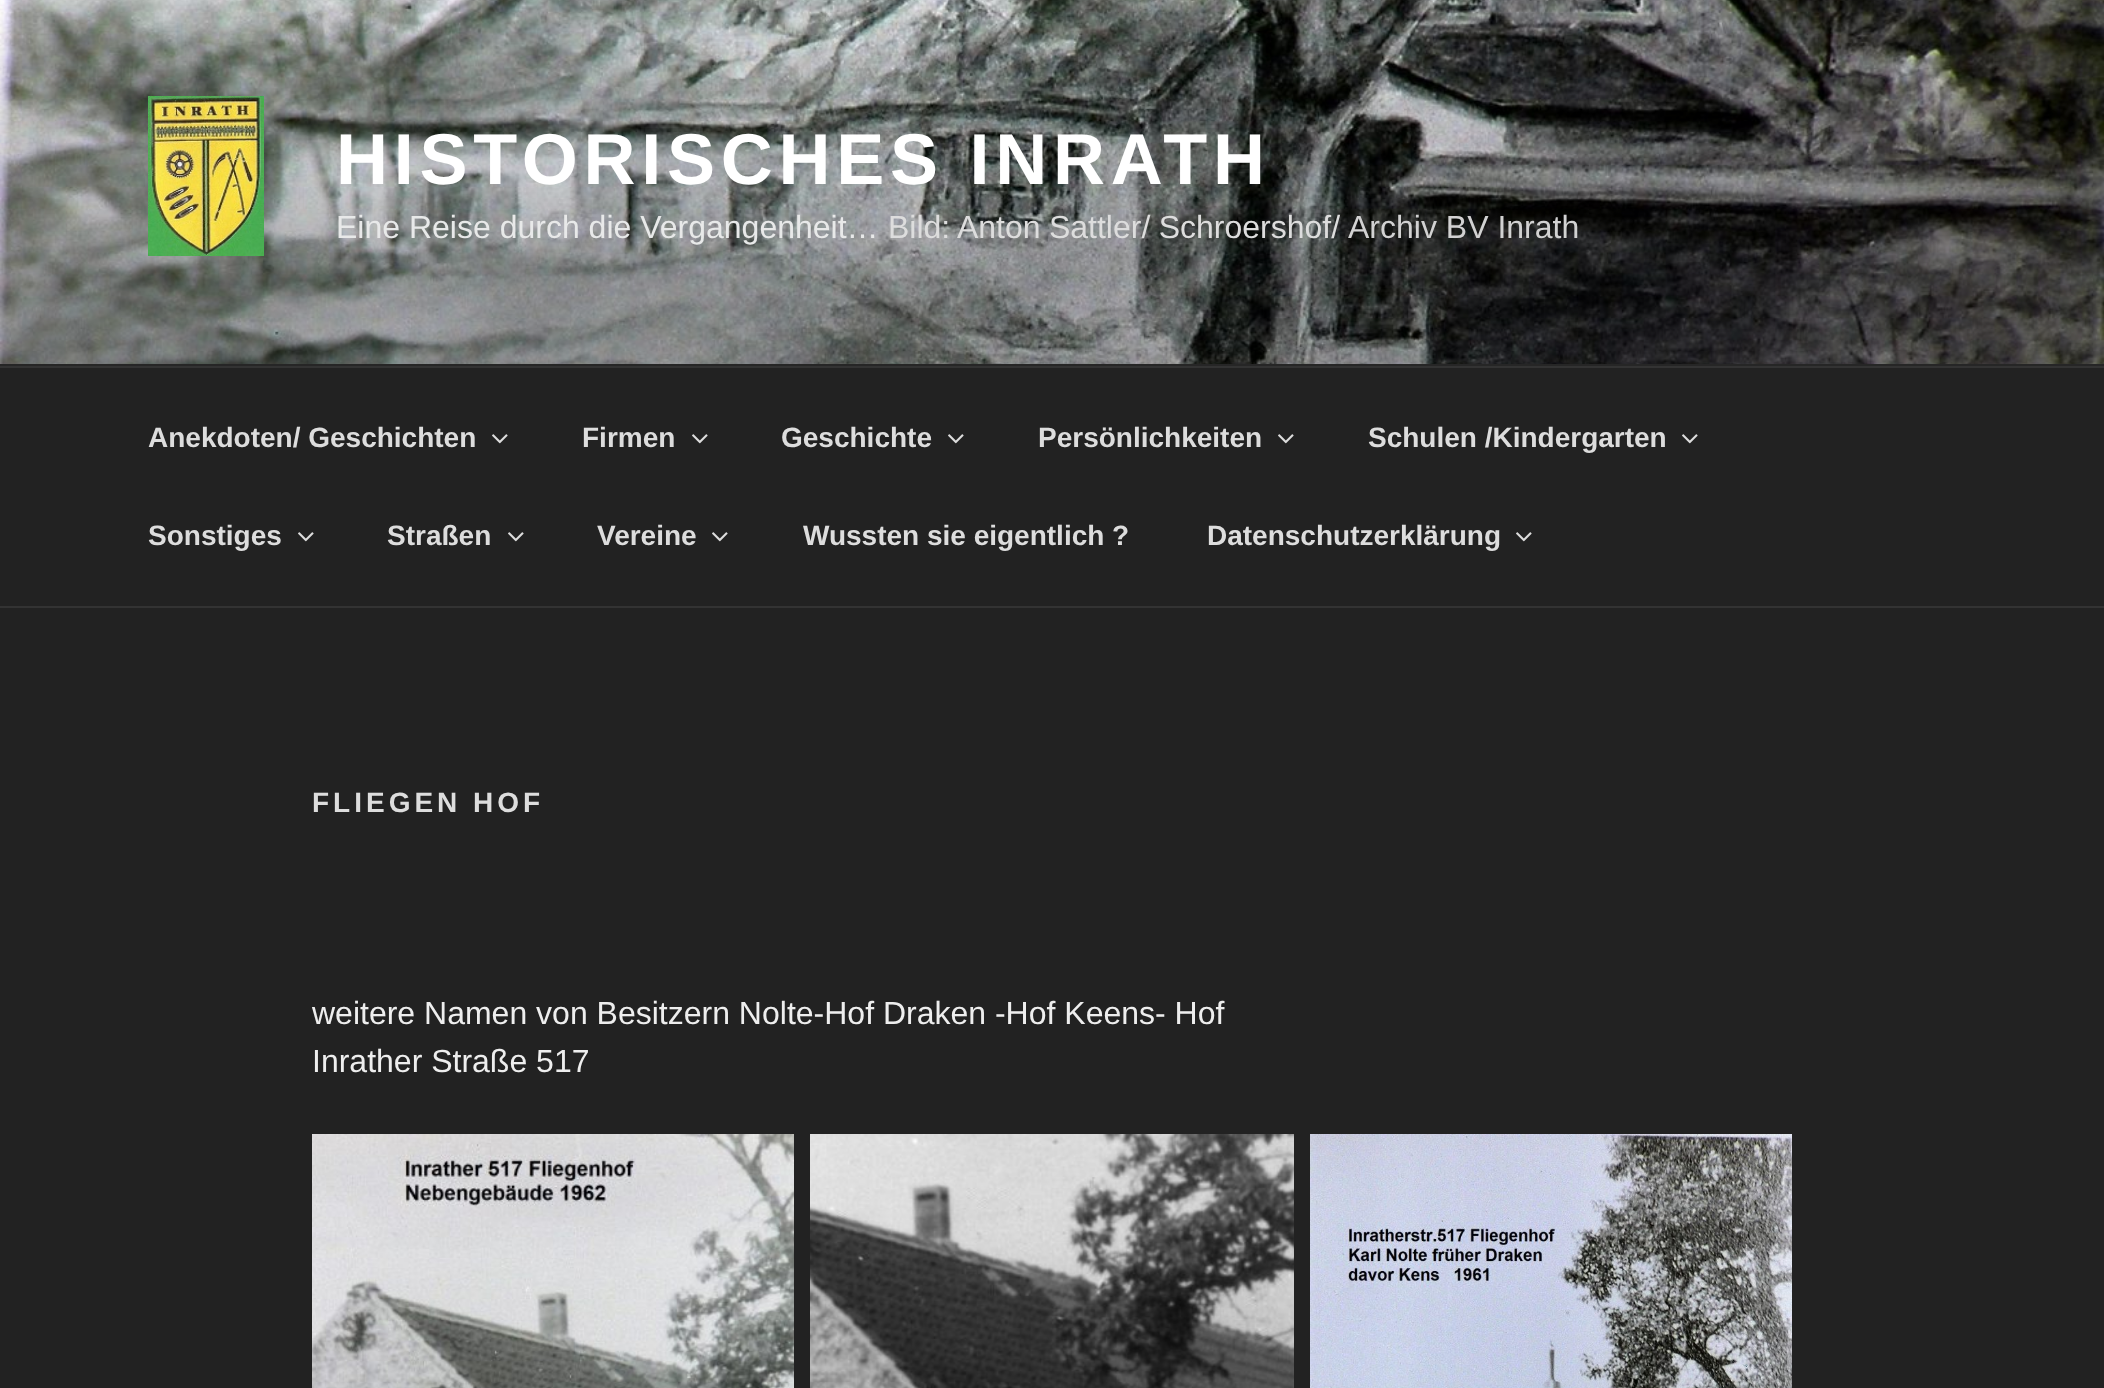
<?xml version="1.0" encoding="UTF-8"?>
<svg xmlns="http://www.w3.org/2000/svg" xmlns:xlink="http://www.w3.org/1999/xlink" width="2104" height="1388">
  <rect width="100%" height="100%" fill="#222222" />
  <rect y="364" width="2104" height="2" fill="#262626" />
  <image x="0" y="0" width="2104" height="364" xlink:href="image1.png" />
  <image x="148" y="96" width="116" height="160" xlink:href="image2.png" />
  <rect y="366" width="2104" height="2" fill="#333333" />
  <rect y="606" width="2104" height="2" fill="#333333" />
  <image x="492" y="434" width="16" height="10" xlink:href="image3.png" />
  <image x="692" y="434" width="16" height="10" xlink:href="image3.png" />
  <image x="948" y="434" width="16" height="10" xlink:href="image3.png" />
  <image x="1278" y="434" width="16" height="10" xlink:href="image3.png" />
  <image x="1682" y="434" width="16" height="10" xlink:href="image3.png" />
  <image x="298" y="532" width="16" height="10" xlink:href="image3.png" />
  <image x="508" y="532" width="16" height="10" xlink:href="image3.png" />
  <image x="712" y="532" width="16" height="10" xlink:href="image3.png" />
  <image x="1516" y="532" width="16" height="10" xlink:href="image3.png" />
  <image x="312" y="1134" width="482" height="254" xlink:href="image4.png" />
  <image x="810" y="1134" width="484" height="254" xlink:href="image5.png" />
  <image x="1310" y="1134" width="482" height="254" xlink:href="image6.png" />
  <text x="336" y="184" style="font-family: Liberation Sans; font-size: 72px; font-weight: bold; letter-spacing: 5.75px; fill: #ffffff">HISTORISCHES INRATH</text>
  <text x="336" y="238" style="font-family: Liberation Sans; font-size: 32px; fill: #e8e9e9">Eine Reise durch die Vergangenheit…</text>
  <text x="888" y="238" word-spacing="-0.5" style="font-family: Liberation Sans; font-size: 32px; fill: #dddddd">Bild: Anton Sattler/ Schroershof/</text>
  <text x="1348" y="238" style="font-family: Liberation Sans; font-size: 32px; fill: #d2d2d2">Archiv BV Inrath</text>
  <text x="148" y="447" style="font-family: Liberation Sans; font-size: 28px; font-weight: bold; fill: #dddddd">Anekdoten/ Geschichten</text>
  <text x="582" y="447" style="font-family: Liberation Sans; font-size: 28px; font-weight: bold; fill: #dddddd">Firmen</text>
  <text x="781" y="447" style="font-family: Liberation Sans; font-size: 28px; font-weight: bold; fill: #dddddd">Geschichte</text>
  <text x="1038" y="447" style="font-family: Liberation Sans; font-size: 28px; font-weight: bold; fill: #dddddd">Persönlichkeiten</text>
  <text x="1368" y="447" style="font-family: Liberation Sans; font-size: 28px; font-weight: bold; fill: #dddddd">Schulen /Kindergarten</text>
  <text x="148" y="545" style="font-family: Liberation Sans; font-size: 28px; font-weight: bold; fill: #dddddd">Sonstiges</text>
  <text x="387" y="545" style="font-family: Liberation Sans; font-size: 28px; font-weight: bold; fill: #dddddd">Straßen</text>
  <text x="597" y="545" style="font-family: Liberation Sans; font-size: 28px; font-weight: bold; fill: #dddddd">Vereine</text>
  <text x="803" y="545" style="font-family: Liberation Sans; font-size: 28px; font-weight: bold; fill: #dddddd">Wussten sie eigentlich ?</text>
  <text x="1207" y="545" style="font-family: Liberation Sans; font-size: 28px; font-weight: bold; fill: #dddddd">Datenschutzerklärung</text>
  <text x="312" y="812" style="font-family: Liberation Sans; font-size: 28px; font-weight: bold; letter-spacing: 4px; fill: #dddddd">FLIEGEN HOF</text>
  <text x="312" y="1024" style="font-family: Liberation Sans; font-size: 32px; fill: #eeeeee">weitere Namen von Besitzern Nolte-Hof Draken -Hof Keens- Hof</text>
  <text x="312" y="1072" style="font-family: Liberation Sans; font-size: 32px; fill: #eeeeee">Inrather Straße 517</text>
</svg>
